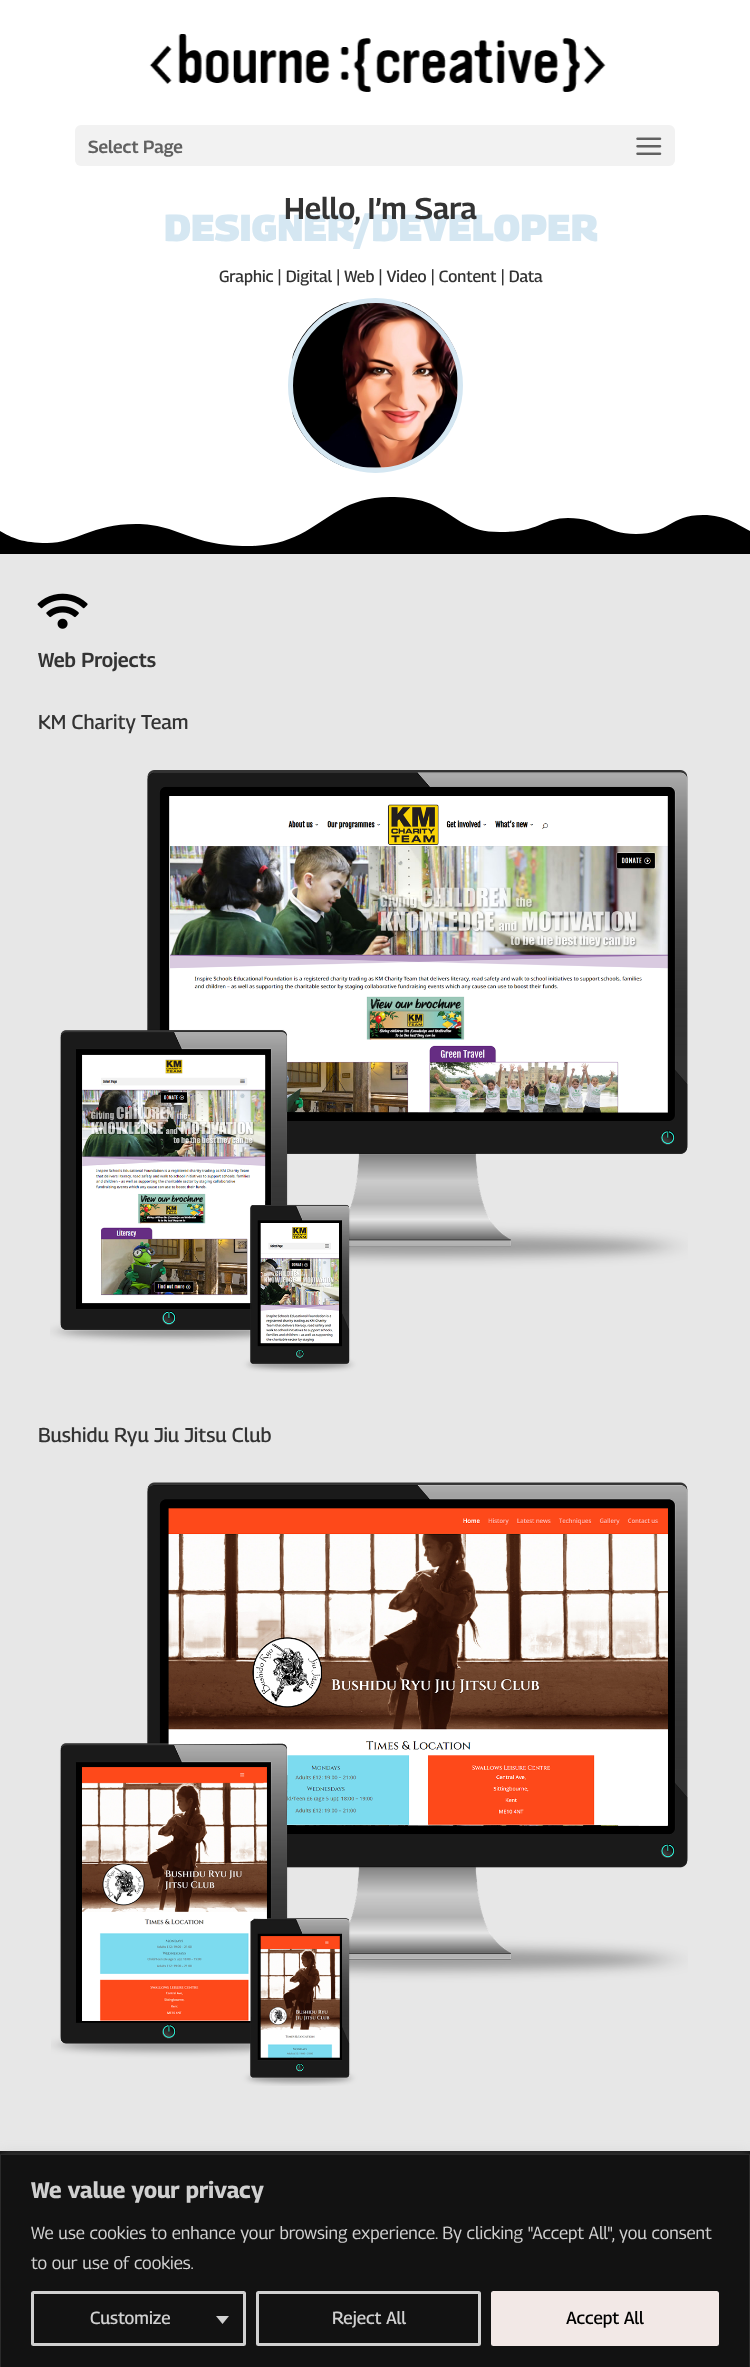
<?xml version="1.0" encoding="UTF-8"?>
<svg xmlns="http://www.w3.org/2000/svg" xmlns:xlink="http://www.w3.org/1999/xlink" width="750" height="2367">
  <rect width="100%" height="100%" fill="#ffffff" />
  <image x="149" y="34" width="457" height="58" xlink:href="image1.png" />
  <rect x="75" y="125" width="600" height="41" rx="6" fill="#f2f2f2" />
  <image x="636" y="137" width="26" height="18" xlink:href="image2.png" />
  <image x="292" y="302" width="166" height="166" xlink:href="image3.png" />
  <circle cx="375.5" cy="385.5" r="85" fill="none" stroke="#d5e7f2" stroke-width="5" />
  <rect y="497" width="750" height="57" fill="#000000" />
  <path d="M 0 491 v 40 c 12 7 23 12 47 12 c 30 0 44 -19 89 -19 c 43 0 53 22 112 22 c 71 0 77 -49 142 -49 c 64 0 58 35 110 35 c 42 0 41 -14 68 -14 c 33 0 36 16 68 16 c 34 0 33 -19 67 -19 c 23 0 35 10 47 16 v -40 z" fill="#ffffff" />
  <rect y="554" width="750" height="1597" fill="#e7e7e7" />
  <image x="37" y="593" width="51" height="36" xlink:href="image4.png" />
  <image x="50" y="770" width="638" height="603" xlink:href="image5.png" />
  <image x="51" y="1482" width="637" height="604" xlink:href="image6.png" />
  <rect y="2151" width="750" height="3" fill="#0f0f0f" />
  <rect y="2153" width="750" height="213" fill="#acabab" fill-opacity="0.3" filter="blur(6px)" />
  <rect x="0.5" y="2154.5" width="749" height="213" fill="#121212" stroke="#2a2a2a" />
  <rect x="32.5" y="2292.5" width="212" height="52" rx="1" fill="none" stroke="#d0d0d0" stroke-width="3" />
  <path d="M 216 2316 h 13 l -6.5 8 z" fill="#d0d0d0" />
  <rect x="257.5" y="2292.5" width="222" height="52" rx="1" fill="none" stroke="#d0d0d0" stroke-width="3" />
  <rect x="492.5" y="2292.5" width="225" height="52" rx="1" fill="#f2e8e6" stroke="#f2e8e6" stroke-width="3" />
  <text x="88" y="153" style="font-family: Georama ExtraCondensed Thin; font-size: 17.5px; font-weight: 600; fill: #616161">Select Page</text>
  <text x="164" y="241" style="font-family: Georama ExtraCondensed Thin; font-size: 37.5px; font-weight: 900; fill: #d5e7f2">DESIGNER/DEVELOPER</text>
  <text x="284" y="219" style="font-family: Georama ExtraCondensed Thin; font-size: 30px; font-weight: 600; fill: #333333">Hello, I’m Sara</text>
  <text x="219" y="282" style="font-family: Georama ExtraCondensed Thin; font-size: 16.25px; font-weight: 500; fill: #333333">Graphic | Digital | Web | Video | Content | Data</text>
  <text x="38" y="667" style="font-family: Georama ExtraCondensed Thin; font-size: 20px; font-weight: 600; fill: #333333">Web Projects</text>
  <text x="38" y="729" style="font-family: Georama ExtraCondensed Thin; font-size: 20px; font-weight: 500; fill: #333333">KM Charity Team</text>
  <text x="38" y="1442" style="font-family: Georama ExtraCondensed Thin; font-size: 20px; font-weight: 500; fill: #333333">Bushidu Ryu Jiu Jitsu Club</text>
  <text x="31" y="2198" style="font-family: Georama ExtraCondensed Thin; font-size: 22.5px; font-weight: bold; fill: #d0d0d0">We value your privacy</text>
  <text x="31" y="2239" style="font-family: Georama ExtraCondensed Thin; font-size: 17.5px; fill: #d0d0d0">We use cookies to enhance your browsing experience. By clicking "Accept All", you consent</text>
  <text x="31" y="2269" style="font-family: Georama ExtraCondensed Thin; font-size: 17.5px; fill: #d0d0d0">to our use of cookies.</text>
  <text x="90" y="2324" style="font-family: Georama ExtraCondensed Thin; font-size: 17.5px; font-weight: 500; fill: #d0d0d0">Customize</text>
  <text x="332" y="2324" style="font-family: Georama ExtraCondensed Thin; font-size: 17.5px; font-weight: 500; fill: #d0d0d0">Reject All</text>
  <text x="566" y="2324" style="font-family: Georama ExtraCondensed Thin; font-size: 17.5px; font-weight: 500; fill: #000000">Accept All</text>
</svg>
